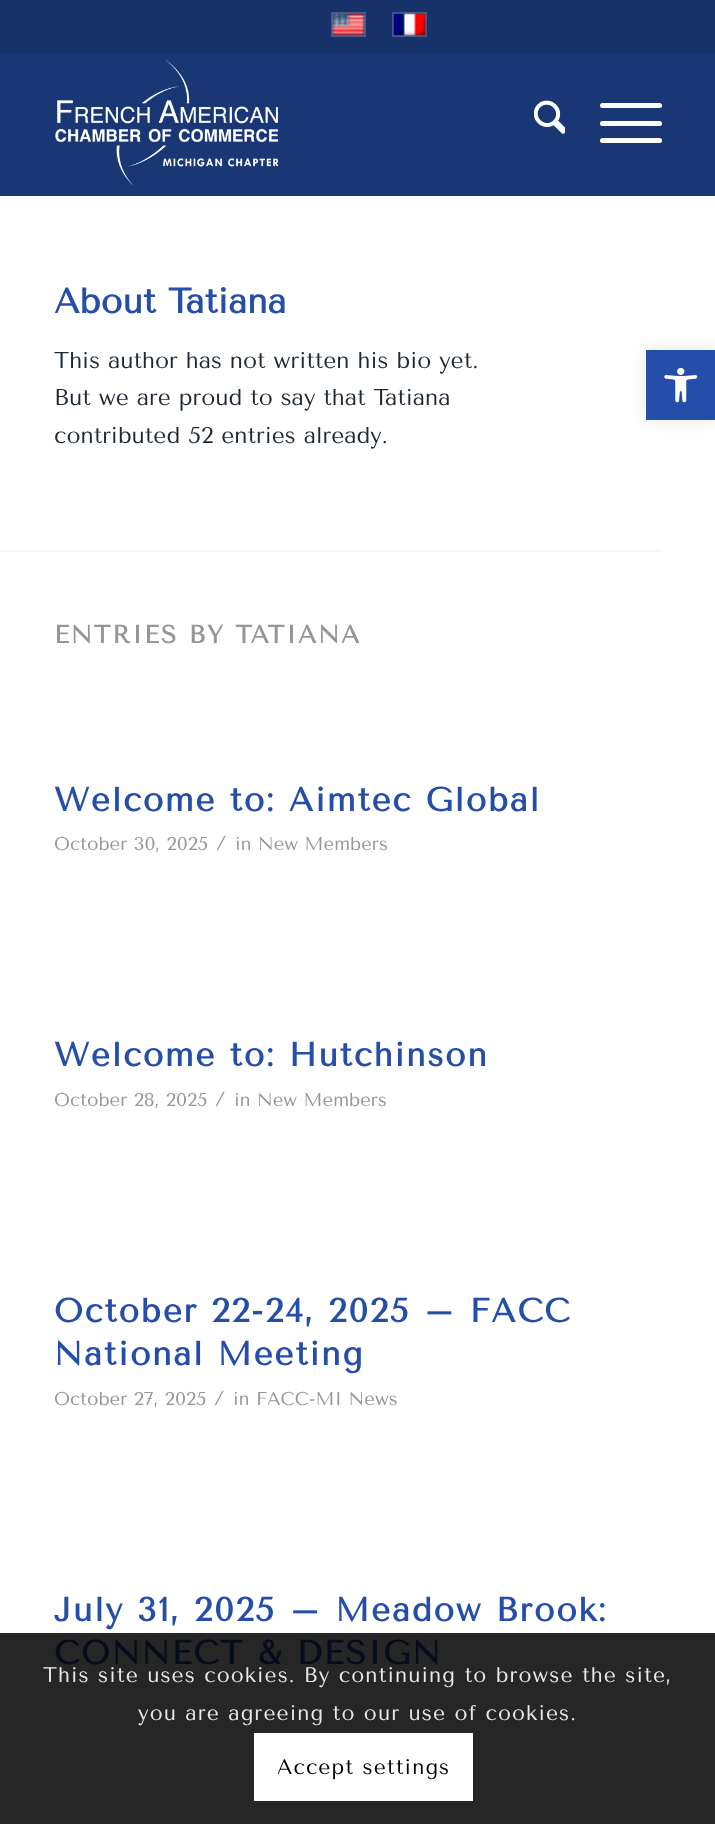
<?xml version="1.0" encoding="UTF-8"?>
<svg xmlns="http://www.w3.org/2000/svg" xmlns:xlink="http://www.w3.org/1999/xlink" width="715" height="1824">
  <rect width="100%" height="100%" fill="#ffffff" />
  <rect width="715" height="54" fill="#173169" />
  <rect x="332" y="13" width="33" height="23" fill="none" stroke="#455a87" stroke-width="2" />
  <image x="331" y="13" width="34" height="23" xlink:href="image1.png" />
  <rect x="393" y="13" width="33" height="23" fill="none" stroke="#455a87" stroke-width="2" />
  <image x="393" y="13" width="33" height="23" xlink:href="image2.png" />
  <rect y="54" width="715" height="142" fill="#1a3775" />
  <image x="55" y="59" width="224" height="127" xlink:href="image3.png" />
  <image x="534" y="100" width="31" height="34" xlink:href="image4.png" />
  <rect x="600" y="121" width="62" height="5" rx="2.5" fill="#ffffff" />
  <rect x="600" y="103" width="62" height="5" rx="2.5" fill="#ffffff" />
  <rect x="600" y="138" width="62" height="5" rx="2.5" fill="#ffffff" />
  <rect y="1633" width="715" height="191" fill="#262626" />
  <rect y="550" width="662" height="2" fill="#f5f7fa" />
  <rect x="646" y="350" width="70" height="70" fill="#000000" fill-opacity="0.1" filter="blur(9px)" />
  <rect x="646" y="350" width="69" height="70" fill="#254ea8" />
  <image x="664" y="368" width="34" height="35" xlink:href="image5.png" />
  <rect x="254" y="1733" width="219" height="68" fill="#ffffff" />
  <text x="54" y="313" style="font-family: Tenor Sans; font-size: 35px; font-weight: bold; fill: #254ea8">About Tatiana</text>
  <text x="54" y="368" style="font-family: Tenor Sans; font-size: 22.75px; fill: #1f2933">This author has not written his bio yet.</text>
  <text x="54" y="405" style="font-family: Tenor Sans; font-size: 22.75px; fill: #1f2933">But we are proud to say that Tatiana</text>
  <text x="54" y="443" style="font-family: Tenor Sans; font-size: 22.75px; fill: #1f2933">contributed 52 entries already.</text>
  <text x="54" y="643" style="font-family: Tenor Sans; font-size: 25px; font-weight: bold; letter-spacing: 1.75px; fill: #969696">ENTRIES BY TATIANA</text>
  <text x="54" y="811" style="font-family: Tenor Sans; font-size: 33.25px; font-weight: bold; letter-spacing: 1.75px; fill: #254ea8">Welcome to: Aimtec Global</text>
  <text x="54" y="850" style="font-family: Tenor Sans; font-size: 18.5px; fill: #969696">October 30, 2025</text>
  <text x="216" y="850" style="font-family: Tenor Sans; font-size: 20px; fill: #969696">/</text>
  <text x="235" y="850" style="font-family: Tenor Sans; font-size: 18.5px; fill: #969696">in New Members</text>
  <text x="54" y="1066" style="font-family: Tenor Sans; font-size: 33.25px; font-weight: bold; letter-spacing: 1.75px; fill: #254ea8">Welcome to: Hutchinson</text>
  <text x="54" y="1106" style="font-family: Tenor Sans; font-size: 18.5px; fill: #969696">October 28, 2025</text>
  <text x="215" y="1106" style="font-family: Tenor Sans; font-size: 20px; fill: #969696">/</text>
  <text x="234" y="1106" style="font-family: Tenor Sans; font-size: 18.5px; fill: #969696">in New Members</text>
  <text x="54" y="1322" style="font-family: Tenor Sans; font-size: 33.25px; font-weight: bold; letter-spacing: 1.75px; fill: #254ea8">October 22-24, 2025 – FACC</text>
  <text x="54" y="1365" style="font-family: Tenor Sans; font-size: 33.25px; font-weight: bold; letter-spacing: 1.75px; fill: #254ea8">National Meeting</text>
  <text x="54" y="1405" style="font-family: Tenor Sans; font-size: 18.5px; fill: #969696">October 27, 2025</text>
  <text x="214" y="1405" style="font-family: Tenor Sans; font-size: 20px; fill: #969696">/</text>
  <text x="233" y="1405" style="font-family: Tenor Sans; font-size: 18.5px; fill: #969696">in FACC-MI News</text>
  <text x="54" y="1621" style="font-family: Tenor Sans; font-size: 33.25px; font-weight: bold; letter-spacing: 1.75px; fill: #254ea8">July 31, 2025 – Meadow Brook:</text>
  <text x="54" y="1664" style="font-family: Tenor Sans; font-size: 33.25px; font-weight: bold; letter-spacing: 1.75px; fill: #060c19">CONNECT &amp; DESIGN</text>
  <text x="43" y="1682" style="font-family: Tenor Sans; font-size: 21px; letter-spacing: 1.05px; fill: #e9e9e9">This site uses cookies. By continuing to browse the site,</text>
  <text x="138" y="1720" style="font-family: Tenor Sans; font-size: 21px; letter-spacing: 1.05px; fill: #e9e9e9">you are agreeing to our use of cookies.</text>
  <text x="277" y="1774" style="font-family: Tenor Sans; font-size: 21px; letter-spacing: 1.05px; fill: #000000">Accept settings</text>
</svg>
